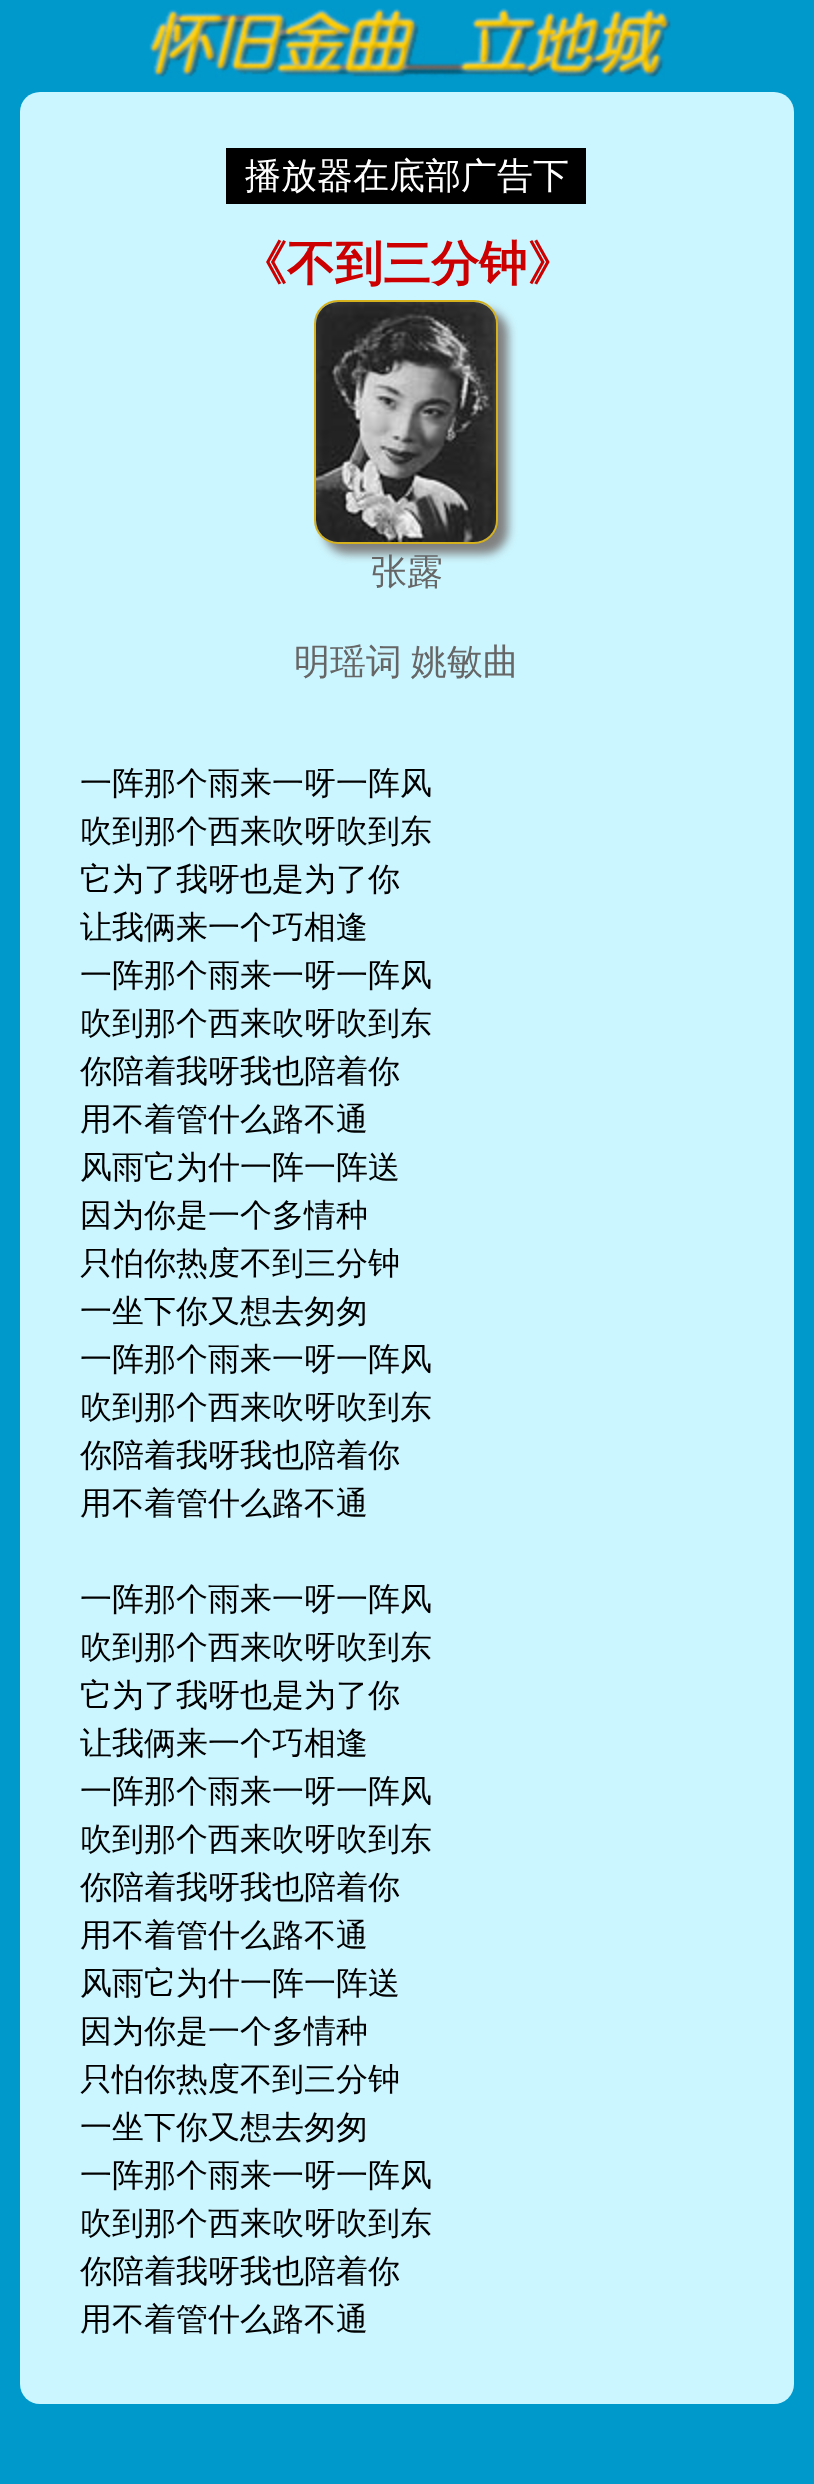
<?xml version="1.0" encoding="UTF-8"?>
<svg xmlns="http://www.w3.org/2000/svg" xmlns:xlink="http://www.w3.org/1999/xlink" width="814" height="2484">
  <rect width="100%" height="100%" fill="#0099cc" />
  <image x="149" y="8" width="522" height="70" xlink:href="image1.png" />
  <rect x="20" y="92" width="774" height="2312" rx="20" fill="#ccf6ff" />
  <rect x="226" y="148" width="360" height="56" fill="#000000" />
  <rect x="324" y="310" width="184" height="244" rx="24" fill="#808080" filter="blur(5px)" />
  <rect x="315" y="301" width="182" height="242" rx="23" fill="none" stroke="#d6b11e" stroke-width="2" />
  <image x="316" y="302" width="180" height="240" xlink:href="image2.png" />
  <text x="245" y="188" style="font-family: WenQuanYi Zen Hei; font-size: 36px; font-weight: 500; fill: #ffffff">播放器在底部广告下</text>
  <text x="239" y="280" style="font-family: WenQuanYi Zen Hei; font-size: 48px; font-weight: bold; fill: #cc0000">《不到三分钟》</text>
  <text x="371" y="584" style="font-family: WenQuanYi Zen Hei; font-size: 36px; font-weight: 500; fill: #666666">张露</text>
  <text x="294" y="674" word-spacing="-2" style="font-family: WenQuanYi Zen Hei; font-size: 36px; font-weight: 500; fill: #666666">明瑶词 姚敏曲</text>
  <text x="80" y="794" style="font-family: WenQuanYi Zen Hei; font-size: 32px; font-weight: 500; fill: #000000">一阵那个雨来一呀一阵风</text>
  <text x="80" y="842" style="font-family: WenQuanYi Zen Hei; font-size: 32px; font-weight: 500; fill: #000000">吹到那个西来吹呀吹到东</text>
  <text x="80" y="890" style="font-family: WenQuanYi Zen Hei; font-size: 32px; font-weight: 500; fill: #000000">它为了我呀也是为了你</text>
  <text x="80" y="938" style="font-family: WenQuanYi Zen Hei; font-size: 32px; font-weight: 500; fill: #000000">让我俩来一个巧相逢</text>
  <text x="80" y="986" style="font-family: WenQuanYi Zen Hei; font-size: 32px; font-weight: 500; fill: #000000">一阵那个雨来一呀一阵风</text>
  <text x="80" y="1034" style="font-family: WenQuanYi Zen Hei; font-size: 32px; font-weight: 500; fill: #000000">吹到那个西来吹呀吹到东</text>
  <text x="80" y="1082" style="font-family: WenQuanYi Zen Hei; font-size: 32px; font-weight: 500; fill: #000000">你陪着我呀我也陪着你</text>
  <text x="80" y="1130" style="font-family: WenQuanYi Zen Hei; font-size: 32px; font-weight: 500; fill: #000000">用不着管什么路不通</text>
  <text x="80" y="1178" style="font-family: WenQuanYi Zen Hei; font-size: 32px; font-weight: 500; fill: #000000">风雨它为什一阵一阵送</text>
  <text x="80" y="1226" style="font-family: WenQuanYi Zen Hei; font-size: 32px; font-weight: 500; fill: #000000">因为你是一个多情种</text>
  <text x="80" y="1274" style="font-family: WenQuanYi Zen Hei; font-size: 32px; font-weight: 500; fill: #000000">只怕你热度不到三分钟</text>
  <text x="80" y="1322" style="font-family: WenQuanYi Zen Hei; font-size: 32px; font-weight: 500; fill: #000000">一坐下你又想去匆匆</text>
  <text x="80" y="1370" style="font-family: WenQuanYi Zen Hei; font-size: 32px; font-weight: 500; fill: #000000">一阵那个雨来一呀一阵风</text>
  <text x="80" y="1418" style="font-family: WenQuanYi Zen Hei; font-size: 32px; font-weight: 500; fill: #000000">吹到那个西来吹呀吹到东</text>
  <text x="80" y="1466" style="font-family: WenQuanYi Zen Hei; font-size: 32px; font-weight: 500; fill: #000000">你陪着我呀我也陪着你</text>
  <text x="80" y="1514" style="font-family: WenQuanYi Zen Hei; font-size: 32px; font-weight: 500; fill: #000000">用不着管什么路不通</text>
  <text x="80" y="1610" style="font-family: WenQuanYi Zen Hei; font-size: 32px; font-weight: 500; fill: #000000">一阵那个雨来一呀一阵风</text>
  <text x="80" y="1658" style="font-family: WenQuanYi Zen Hei; font-size: 32px; font-weight: 500; fill: #000000">吹到那个西来吹呀吹到东</text>
  <text x="80" y="1706" style="font-family: WenQuanYi Zen Hei; font-size: 32px; font-weight: 500; fill: #000000">它为了我呀也是为了你</text>
  <text x="80" y="1754" style="font-family: WenQuanYi Zen Hei; font-size: 32px; font-weight: 500; fill: #000000">让我俩来一个巧相逢</text>
  <text x="80" y="1802" style="font-family: WenQuanYi Zen Hei; font-size: 32px; font-weight: 500; fill: #000000">一阵那个雨来一呀一阵风</text>
  <text x="80" y="1850" style="font-family: WenQuanYi Zen Hei; font-size: 32px; font-weight: 500; fill: #000000">吹到那个西来吹呀吹到东</text>
  <text x="80" y="1898" style="font-family: WenQuanYi Zen Hei; font-size: 32px; font-weight: 500; fill: #000000">你陪着我呀我也陪着你</text>
  <text x="80" y="1946" style="font-family: WenQuanYi Zen Hei; font-size: 32px; font-weight: 500; fill: #000000">用不着管什么路不通</text>
  <text x="80" y="1994" style="font-family: WenQuanYi Zen Hei; font-size: 32px; font-weight: 500; fill: #000000">风雨它为什一阵一阵送</text>
  <text x="80" y="2042" style="font-family: WenQuanYi Zen Hei; font-size: 32px; font-weight: 500; fill: #000000">因为你是一个多情种</text>
  <text x="80" y="2090" style="font-family: WenQuanYi Zen Hei; font-size: 32px; font-weight: 500; fill: #000000">只怕你热度不到三分钟</text>
  <text x="80" y="2138" style="font-family: WenQuanYi Zen Hei; font-size: 32px; font-weight: 500; fill: #000000">一坐下你又想去匆匆</text>
  <text x="80" y="2186" style="font-family: WenQuanYi Zen Hei; font-size: 32px; font-weight: 500; fill: #000000">一阵那个雨来一呀一阵风</text>
  <text x="80" y="2234" style="font-family: WenQuanYi Zen Hei; font-size: 32px; font-weight: 500; fill: #000000">吹到那个西来吹呀吹到东</text>
  <text x="80" y="2282" style="font-family: WenQuanYi Zen Hei; font-size: 32px; font-weight: 500; fill: #000000">你陪着我呀我也陪着你</text>
  <text x="80" y="2330" style="font-family: WenQuanYi Zen Hei; font-size: 32px; font-weight: 500; fill: #000000">用不着管什么路不通</text>
</svg>
